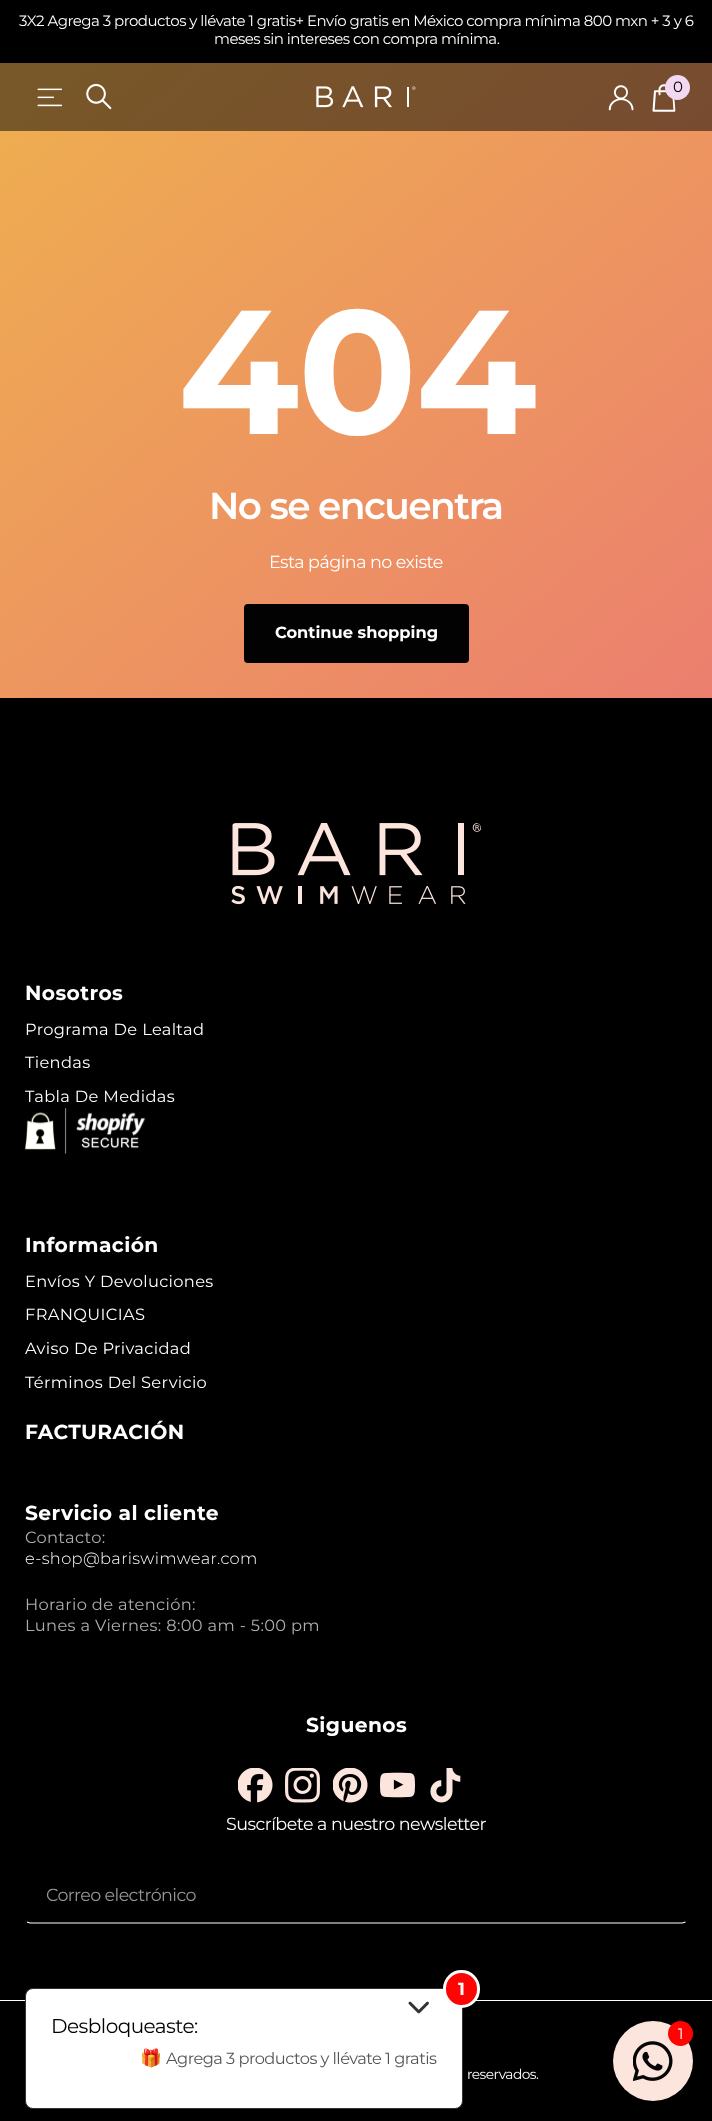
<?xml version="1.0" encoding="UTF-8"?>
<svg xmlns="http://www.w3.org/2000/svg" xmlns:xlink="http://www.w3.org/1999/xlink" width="712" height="2121">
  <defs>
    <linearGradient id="g1" gradientUnits="userSpaceOnUse" x1="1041" y1="1876" x2="-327" y2="245"><stop offset="0.04" stop-color="#74254a" /><stop offset="1" stop-color="#785a26" /></linearGradient>
    <linearGradient id="g2" gradientUnits="userSpaceOnUse" x1="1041" y1="1876" x2="-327" y2="245"><stop offset="0.04" stop-color="#e84a93" /><stop offset="1" stop-color="#efb34c" /></linearGradient>
  </defs>
  <rect width="100%" height="100%" fill="#ffffff" />
  <rect width="712" height="63" fill="#000000" />
  <rect y="63" width="712" height="68" fill="url(#g1)" />
  <image x="37" y="88" width="26" height="19" xlink:href="image1.png" />
  <image x="86" y="83" width="26" height="27" xlink:href="image2.png" />
  <image x="316" y="86" width="100" height="22" xlink:href="image3.png" />
  <image x="608" y="85" width="26" height="26" xlink:href="image4.png" />
  <image x="652" y="84" width="24" height="28" xlink:href="image5.png" />
  <circle cx="677.5" cy="87.5" r="12.5" fill="#f2d9f1" />
  <rect y="131" width="712" height="567" fill="url(#g2)" />
  <rect x="244" y="604" width="225" height="59" rx="4" fill="#020202" />
  <rect y="698" width="712" height="1423" fill="#000000" />
  <image x="231" y="823" width="250" height="82" xlink:href="image6.png" />
  <image x="25" y="1108" width="121" height="46" xlink:href="image7.png" />
  <image x="238" y="1768" width="35" height="35" xlink:href="image8.png" />
  <image x="285" y="1768" width="35" height="35" xlink:href="image9.png" />
  <image x="333" y="1768" width="35" height="35" xlink:href="image10.png" />
  <image x="380" y="1772" width="35" height="26" xlink:href="image11.png" />
  <image x="430" y="1768" width="31" height="35" xlink:href="image12.png" />
  <path d="M 685.5 1922 l -3 1 h -652.5 l -3 -1" fill="none" stroke="#ffffff" stroke-width="1.2" />
  <rect y="2000" width="712" height="1" fill="#ffffff" />
  <rect x="25.5" y="1988.5" width="437" height="120" rx="7.5" fill="#ffffff" stroke="#323232" />
  <rect x="444.5" y="1971.5" width="34" height="35" rx="17" fill="#ff0404" stroke="#ffffff" stroke-width="3" />
  <image x="408" y="2001" width="21" height="13" xlink:href="image13.png" />
  <circle cx="653" cy="2061" r="40" fill="#fce5dd" />
  <image x="633" y="2041" width="40" height="40" xlink:href="image14.png" />
  <circle cx="680.5" cy="2033.5" r="12.5" fill="#ff0303" />
  <text x="19" y="26" style="font-family: Montserrat; font-size: 15px; letter-spacing: -0.53px; fill: #ffffff">3X2 Agrega 3 productos y llévate 1 gratis+ Envío gratis en México compra mínima 800 mxn + 3 y 6</text>
  <text x="214" y="44" style="font-family: Montserrat; font-size: 15px; letter-spacing: -0.53px; fill: #ffffff">meses sin intereses con compra mínima.</text>
  <text x="673" y="92" style="font-family: Montserrat; font-size: 15px; fill: #000000">0</text>
  <text x="178" y="434" style="font-family: Montserrat; font-size: 176px; font-weight: bold; letter-spacing: -1.5px; fill: #ffffff">404</text>
  <text x="209" y="519" style="font-family: Montserrat; font-size: 37.5px; font-weight: 600; letter-spacing: -1.5px; fill: #ffffff">No se encuentra</text>
  <text x="269" y="568" style="font-family: Montserrat; font-size: 17.5px; letter-spacing: -0.53px; fill: #ffffff">Esta página no existe</text>
  <text x="275" y="638" style="font-family: Montserrat; font-size: 16.25px; font-weight: bold; fill: #ffffff">Continue shopping</text>
  <text x="25" y="1000" style="font-family: Montserrat; font-size: 20.25px; font-weight: bold; letter-spacing: 0.4px; fill: #ffffff">Nosotros</text>
  <text x="25" y="1035" style="font-family: Montserrat; font-size: 16.25px; letter-spacing: 0.35px; fill: #ffffff">Programa De Lealtad</text>
  <text x="25" y="1068" style="font-family: Montserrat; font-size: 16.25px; letter-spacing: 0.35px; fill: #ffffff">Tiendas</text>
  <text x="25" y="1102" style="font-family: Montserrat; font-size: 16.25px; letter-spacing: 0.35px; fill: #ffffff">Tabla De Medidas</text>
  <text x="25" y="1252" style="font-family: Montserrat; font-size: 20.25px; font-weight: bold; letter-spacing: 0.4px; fill: #ffffff">Información</text>
  <text x="25" y="1287" style="font-family: Montserrat; font-size: 16.25px; letter-spacing: 0.35px; fill: #ffffff">Envíos Y Devoluciones</text>
  <text x="25" y="1320" style="font-family: Montserrat; font-size: 16.25px; letter-spacing: 0.35px; fill: #ffffff">FRANQUICIAS</text>
  <text x="25" y="1354" style="font-family: Montserrat; font-size: 16.25px; letter-spacing: 0.35px; fill: #ffffff">Aviso De Privacidad</text>
  <text x="25" y="1388" style="font-family: Montserrat; font-size: 16.25px; letter-spacing: 0.35px; fill: #ffffff">Términos Del Servicio</text>
  <text x="25" y="1439" style="font-family: Montserrat; font-size: 20.25px; font-weight: bold; letter-spacing: 0.4px; fill: #ffffff">FACTURACIÓN</text>
  <text x="25" y="1520" style="font-family: Montserrat; font-size: 20.25px; font-weight: bold; letter-spacing: 0.4px; fill: #ffffff">Servicio al cliente</text>
  <text x="25" y="1543" style="font-family: Montserrat; font-size: 16.25px; letter-spacing: 0.35px; fill: #aeaeae">Contacto:</text>
  <text x="25" y="1564" style="font-family: Montserrat; font-size: 16.25px; font-weight: 300; letter-spacing: 0.35px; fill: #ffffff">e-shop@bariswimwear.com</text>
  <text x="25" y="1610" style="font-family: Montserrat; font-size: 16.25px; letter-spacing: 0.35px; fill: #aeaeae">Horario de atención:</text>
  <text x="25" y="1631" style="font-family: Montserrat; font-size: 16.25px; letter-spacing: 0.35px; fill: #aeaeae">Lunes a Viernes: 8:00 am - 5:00 pm</text>
  <text x="306" y="1732" style="font-family: Montserrat; font-size: 20.25px; font-weight: bold; letter-spacing: 0.4px; fill: #ffffff">Siguenos</text>
  <text x="226" y="1830" style="font-family: Montserrat; font-size: 17.5px; letter-spacing: -0.53px; fill: #ffffff">Suscríbete a nuestro newsletter</text>
  <text x="46" y="1901" style="font-family: Montserrat; font-size: 17.5px; letter-spacing: -0.6px; fill: #959595">Correo electrónico</text>
  <text x="467" y="2079" style="font-family: Montserrat; font-size: 13.75px; letter-spacing: -0.53px; fill: #ffffff">reservados.</text>
  <text x="458" y="1995" style="font-family: Montserrat; font-size: 17.5px; font-weight: bold; letter-spacing: -0.53px; fill: #ffffff">1</text>
  <text x="51" y="2033" style="font-family: Montserrat; font-size: 20px; letter-spacing: -0.53px; fill: #000000">Desbloqueaste:</text>
  <text x="140" y="2064" style="font-family: Noto Color Emoji; font-size: 17.5px; font-weight: bold; letter-spacing: -0.53px; fill: #555555">🎁</text>
  <text x="166" y="2064" style="font-family: Montserrat; font-size: 16.25px; letter-spacing: -0.53px; fill: #555555">Agrega 3 productos y llévate 1 gratis</text>
  <text x="678" y="2039" style="font-family: Montserrat; font-size: 15px; letter-spacing: -0.53px; fill: #ffffff">1</text>
</svg>
